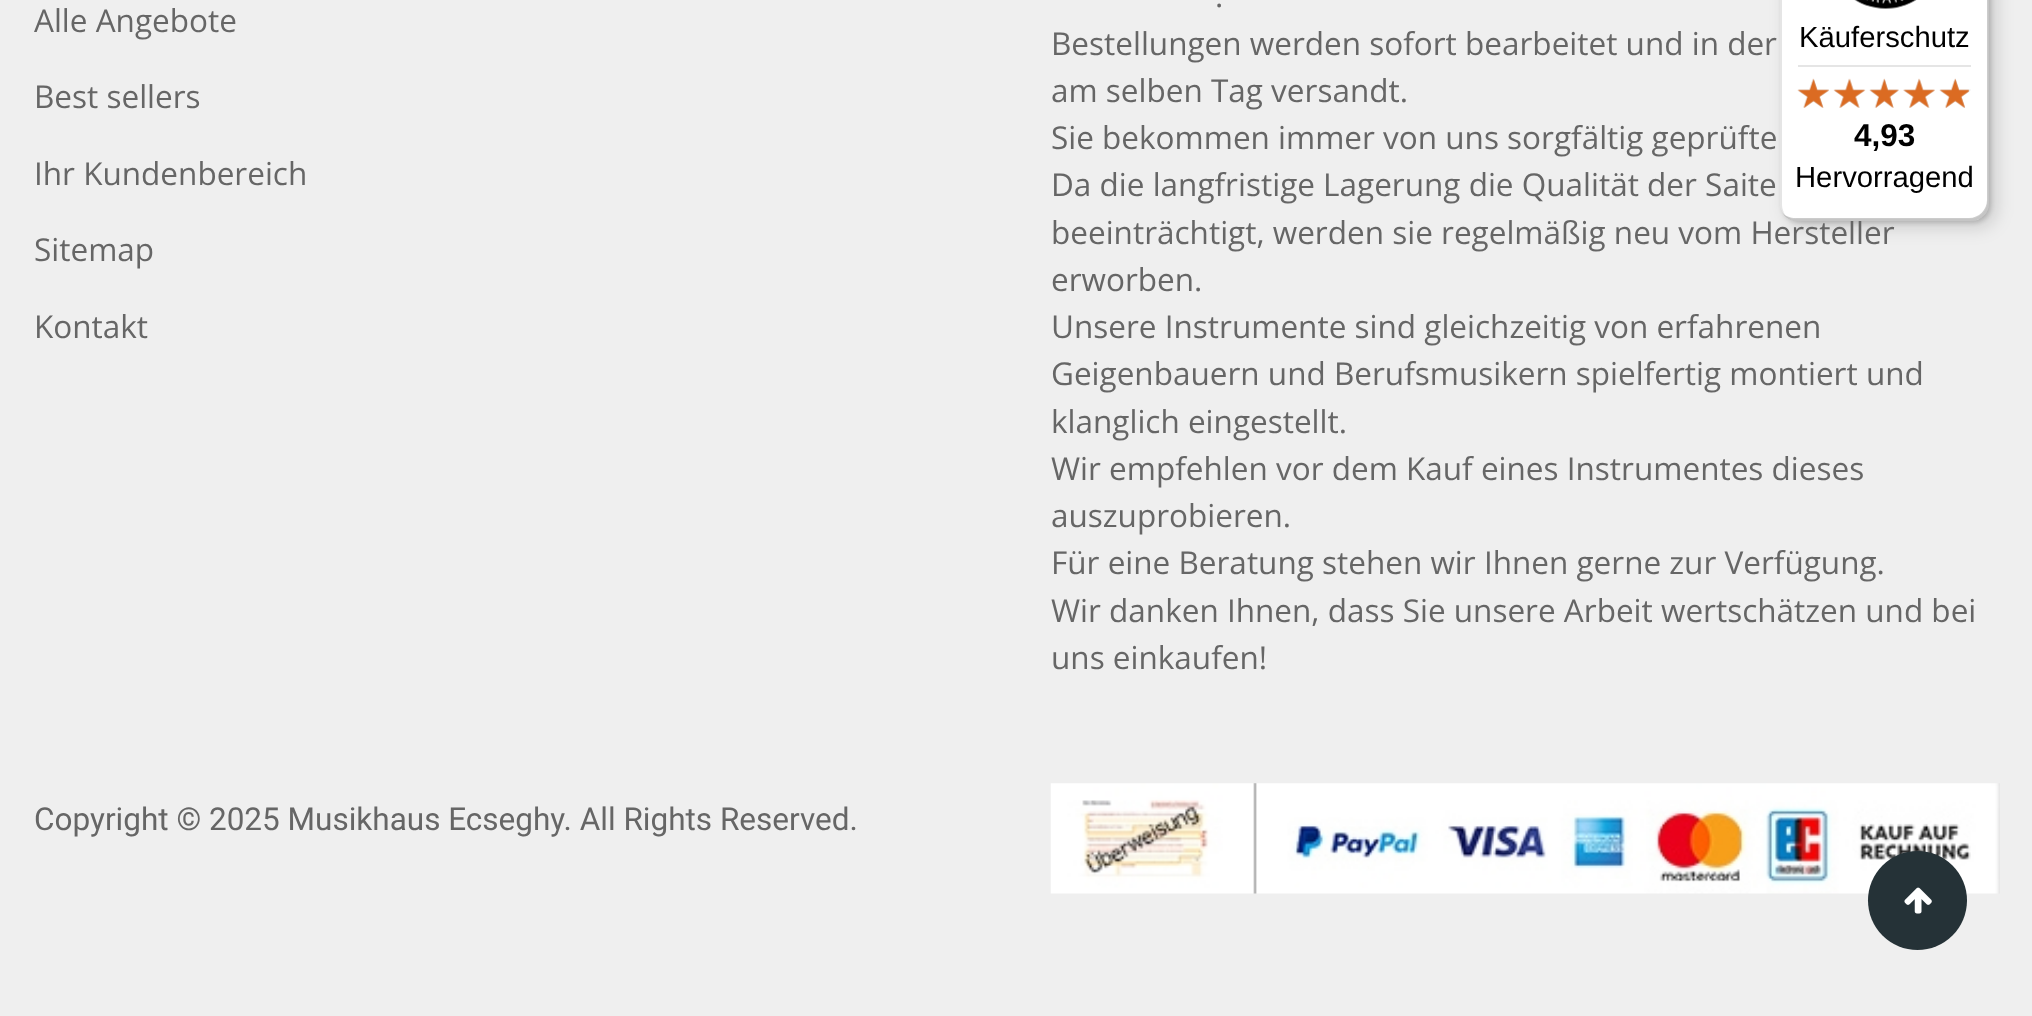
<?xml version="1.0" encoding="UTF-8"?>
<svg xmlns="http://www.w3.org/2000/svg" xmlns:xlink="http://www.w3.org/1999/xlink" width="2032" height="1016">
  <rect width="100%" height="100%" fill="#efefef" />
  <image x="1050" y="783" width="950" height="111" xlink:href="image1.png" />
  <rect x="1787" y="-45" width="209" height="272" rx="18" fill="#000000" fill-opacity="0.15" filter="blur(9px)" />
  <rect x="1782" y="-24" width="209" height="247" rx="18" fill="#000000" fill-opacity="0.15" filter="blur(2px)" />
  <circle cx="1917.5" cy="900.5" r="49.5" fill="#253237" />
  <image x="1904" y="887" width="28" height="27" xlink:href="image13.png" />
  <text x="34" y="32" style="font-family: Open Sans; font-size: 31.5px; fill: #666666">Alle Angebote</text>
  <text x="34" y="108" style="font-family: Open Sans; font-size: 31.5px; fill: #666666">Best sellers</text>
  <text x="34" y="185" style="font-family: Open Sans; font-size: 31.5px; fill: #666666">Ihr Kundenbereich</text>
  <text x="34" y="261" style="font-family: Open Sans; font-size: 31.5px; fill: #666666">Sitemap</text>
  <text x="34" y="338" style="font-family: Open Sans; font-size: 31.5px; fill: #666666">Kontakt</text>
  <text x="1215" y="7" style="font-family: Open Sans; font-size: 31.5px; fill: #666666">.</text>
  <text x="1051" y="55" style="font-family: Open Sans; font-size: 31.5px; fill: #666666">Bestellungen werden sofort bearbeitet und in der</text>
  <text x="1051" y="102" style="font-family: Open Sans; font-size: 31.5px; fill: #666666">am selben Tag versandt.</text>
  <text x="1051" y="149" style="font-family: Open Sans; font-size: 31.5px; fill: #666666">Sie bekommen immer von uns sorgfältig geprüfte</text>
  <text x="1051" y="196" style="font-family: Open Sans; font-size: 31.5px; fill: #666666">Da die langfristige Lagerung die Qualität der Saite</text>
  <text x="1051" y="244" style="font-family: Open Sans; font-size: 31.5px; fill: #666666">beeinträchtigt, werden sie regelmäßig neu vom Hersteller</text>
  <text x="1051" y="291" style="font-family: Open Sans; font-size: 31.5px; fill: #666666">erworben.</text>
  <text x="1051" y="338" style="font-family: Open Sans; font-size: 31.5px; fill: #666666">Unsere Instrumente sind gleichzeitig von erfahrenen</text>
  <text x="1051" y="385" style="font-family: Open Sans; font-size: 31.5px; fill: #666666">Geigenbauern und Berufsmusikern spielfertig montiert und</text>
  <text x="1051" y="433" style="font-family: Open Sans; font-size: 31.5px; fill: #666666">klanglich eingestellt.</text>
  <text x="1051" y="480" style="font-family: Open Sans; font-size: 31.5px; fill: #666666">Wir empfehlen vor dem Kauf eines Instrumentes dieses</text>
  <text x="1051" y="527" style="font-family: Open Sans; font-size: 31.5px; fill: #666666">auszuprobieren.</text>
  <text x="1051" y="574" style="font-family: Open Sans; font-size: 31.5px; fill: #666666">Für eine Beratung stehen wir Ihnen gerne zur Verfügung.</text>
  <text x="1051" y="622" style="font-family: Open Sans; font-size: 31.5px; fill: #666666">Wir danken Ihnen, dass Sie unsere Arbeit wertschätzen und bei</text>
  <text x="1051" y="669" style="font-family: Open Sans; font-size: 31.5px; fill: #666666">uns einkaufen!</text>
  <text x="34" y="830" style="font-family: Roboto; font-size: 31.5px; fill: #666666">Copyright © 2025 Musikhaus Ecseghy. All Rights Reserved.</text>
  <rect x="1780" y="-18" width="209" height="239" rx="18" fill="#ffffff" />
  <path d="M 1800 -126 h 173 c 4 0 8 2 12 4 c -4 -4 -9 -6 -14 -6 h -173 c -10 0 -18 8 -18 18 v 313 c 0 5 2 10 6 14 c -2 -4 -4 -8 -4 -12 v -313 c 0 -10 8 -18 18 -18 z" fill="#000000" fill-opacity="0.1" />
  <path d="M 1782 212 c 3 5 9 9 16 9 h 173 c 10 0 18 -8 18 -18 v -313 c 0 -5 -2 -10 -6 -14 c 2 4 4 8 4 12 v 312 c 0 10 -8 18 -18 18 h -173 c -6 0 -11 -2 -14 -6 z" fill="#000000" fill-opacity="0.2" />
  <path d="M 1784 215 c 4 4 9 6 14 6 h 173 c 10 0 18 -8 18 -18 v -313 c 0 -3 -1 -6 -2 -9 c 1 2 1 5 1 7 v 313 c 0 10 -8 18 -18 18 h -174 c -4 0 -8 -2 -12 -4 z" fill="#323232" fill-opacity="0.2" />
  <path d="M 1782 210 c 2 7 9 11 16 11 h 173 c 10 0 18 -8 18 -18 v -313 c 0 -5 -2 -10 -5 -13 c 2 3 4 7 4 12 v 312 c 0 10 -8 18 -18 18 h -173 c -7 0 -12 -4 -15 -9 z" fill="#ffffff" fill-opacity="0.3" />
  <image x="1854" y="0" width="63" height="9" xlink:href="image2.png" />
  <text x="1799" y="47" style="font-family: Liberation Sans; font-size: 29.25px; fill: #000000">Käuferschutz</text>
  <rect x="1798" y="65" width="173" height="2" fill="#e5e5e5" />
  <image x="1798" y="79" width="31" height="29" xlink:href="image8.png" />
  <image x="1797" y="78" width="32" height="30" xlink:href="image3.png" />
  <image x="1834" y="79" width="31" height="29" xlink:href="image9.png" />
  <image x="1833" y="78" width="33" height="30" xlink:href="image4.png" />
  <image x="1870" y="79" width="29" height="29" xlink:href="image10.png" />
  <image x="1869" y="78" width="30" height="30" xlink:href="image5.png" />
  <image x="1903" y="79" width="32" height="29" xlink:href="image11.png" />
  <image x="1903" y="78" width="32" height="30" xlink:href="image6.png" />
  <image x="1940" y="79" width="31" height="29" xlink:href="image12.png" />
  <image x="1939" y="78" width="30" height="30" xlink:href="image7.png" />
  <text x="1854" y="146" style="font-family: Liberation Sans; font-size: 31.5px; font-weight: bold; fill: #000000">4,93</text>
  <text x="1795" y="187" style="font-family: Liberation Sans; font-size: 29.25px; fill: #000000">Hervorragend</text>
</svg>
